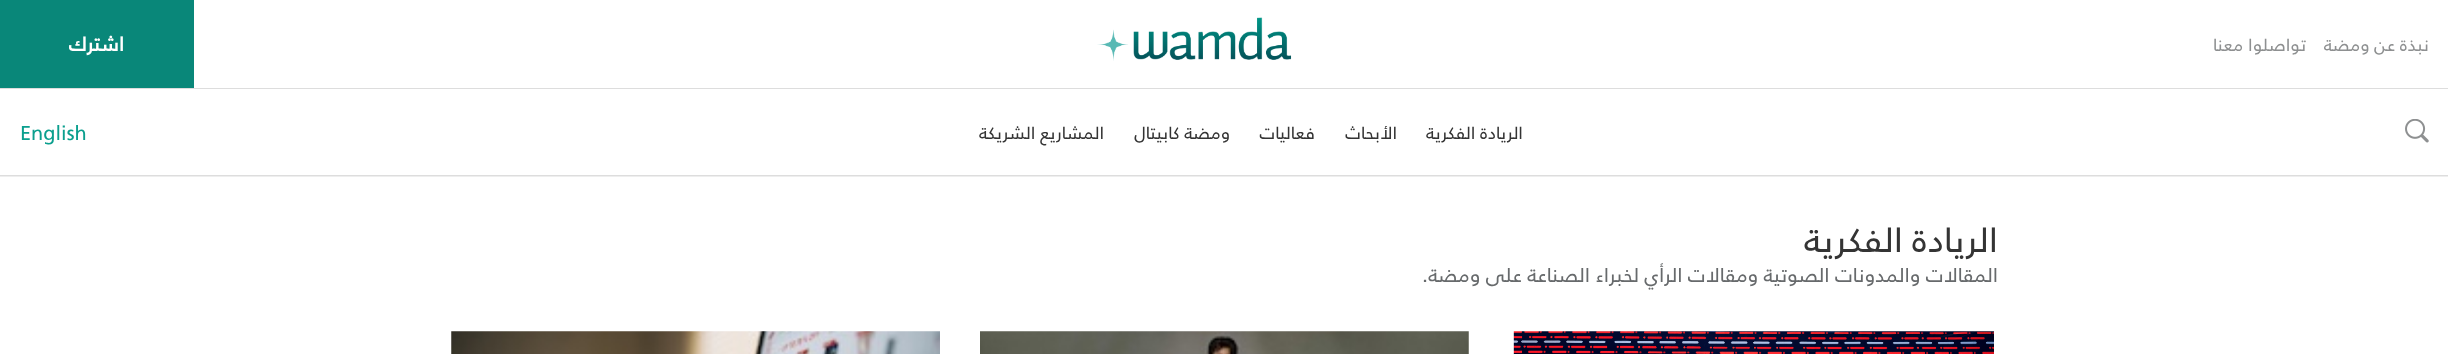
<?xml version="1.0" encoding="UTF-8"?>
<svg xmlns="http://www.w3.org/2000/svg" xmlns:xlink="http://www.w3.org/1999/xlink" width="2448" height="354">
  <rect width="100%" height="100%" fill="#ffffff" />
  <rect y="176" width="2448" height="1" fill="#eeeeee" />
  <image x="1097" y="17" width="195" height="44" xlink:href="image1.png" />
  <rect width="194" height="88" fill="#098779" />
  <rect y="88" width="2448" height="1" fill="#dddddd" />
  <rect y="175" width="2448" height="1" fill="#dddddd" />
  <image x="2405" y="119" width="24" height="24" xlink:href="image2.png" />
  <image x="1513" y="331" width="481" height="23" xlink:href="image3.png" />
  <image x="980" y="331" width="489" height="23" xlink:href="image4.png" />
  <image x="451" y="331" width="489" height="23" xlink:href="image5.png" />
  <text x="2429" y="51" style="font-family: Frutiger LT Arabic; font-size: 17.5px; direction: rtl; fill: #8e9091">نبذة عن ومضة</text>
  <text x="2306" y="51" style="font-family: Frutiger LT Arabic; font-size: 17.5px; direction: rtl; fill: #8e9091">تواصلوا معنا</text>
  <text x="124" y="51" style="font-family: Frutiger LT Arabic; font-size: 20px; font-weight: bold; direction: rtl; fill: #ffffff">اشترك</text>
  <text x="1523" y="139" style="font-family: Frutiger LT Arabic; font-size: 17.5px; direction: rtl; fill: #343434">الريادة الفكرية</text>
  <text x="1397" y="139" style="font-family: Frutiger LT Arabic; font-size: 17.5px; direction: rtl; fill: #343434">الأبحاث</text>
  <text x="1315" y="139" style="font-family: Frutiger LT Arabic; font-size: 17.5px; direction: rtl; fill: #343434">فعاليات</text>
  <text x="1230" y="139" style="font-family: Frutiger LT Arabic; font-size: 17.5px; direction: rtl; fill: #343434">ومضة كابيتال</text>
  <text x="1104" y="139" style="font-family: Frutiger LT Arabic; font-size: 17.5px; direction: rtl; fill: #343434">المشاريع الشريكة</text>
  <text x="20" y="140" style="font-family: Frutiger LT Arabic; font-size: 20px; fill: #0b9f8e">English</text>
  <text x="1998" y="252" style="font-family: Frutiger LT Arabic; font-size: 35px; direction: rtl; fill: #343434">الريادة الفكرية</text>
  <text x="1998" y="282" style="font-family: Frutiger LT Arabic; font-size: 20px; direction: rtl; fill: #676a6c">المقالات والمدونات الصوتية ومقالات الرأي لخبراء الصناعة على ومضة.</text>
</svg>
